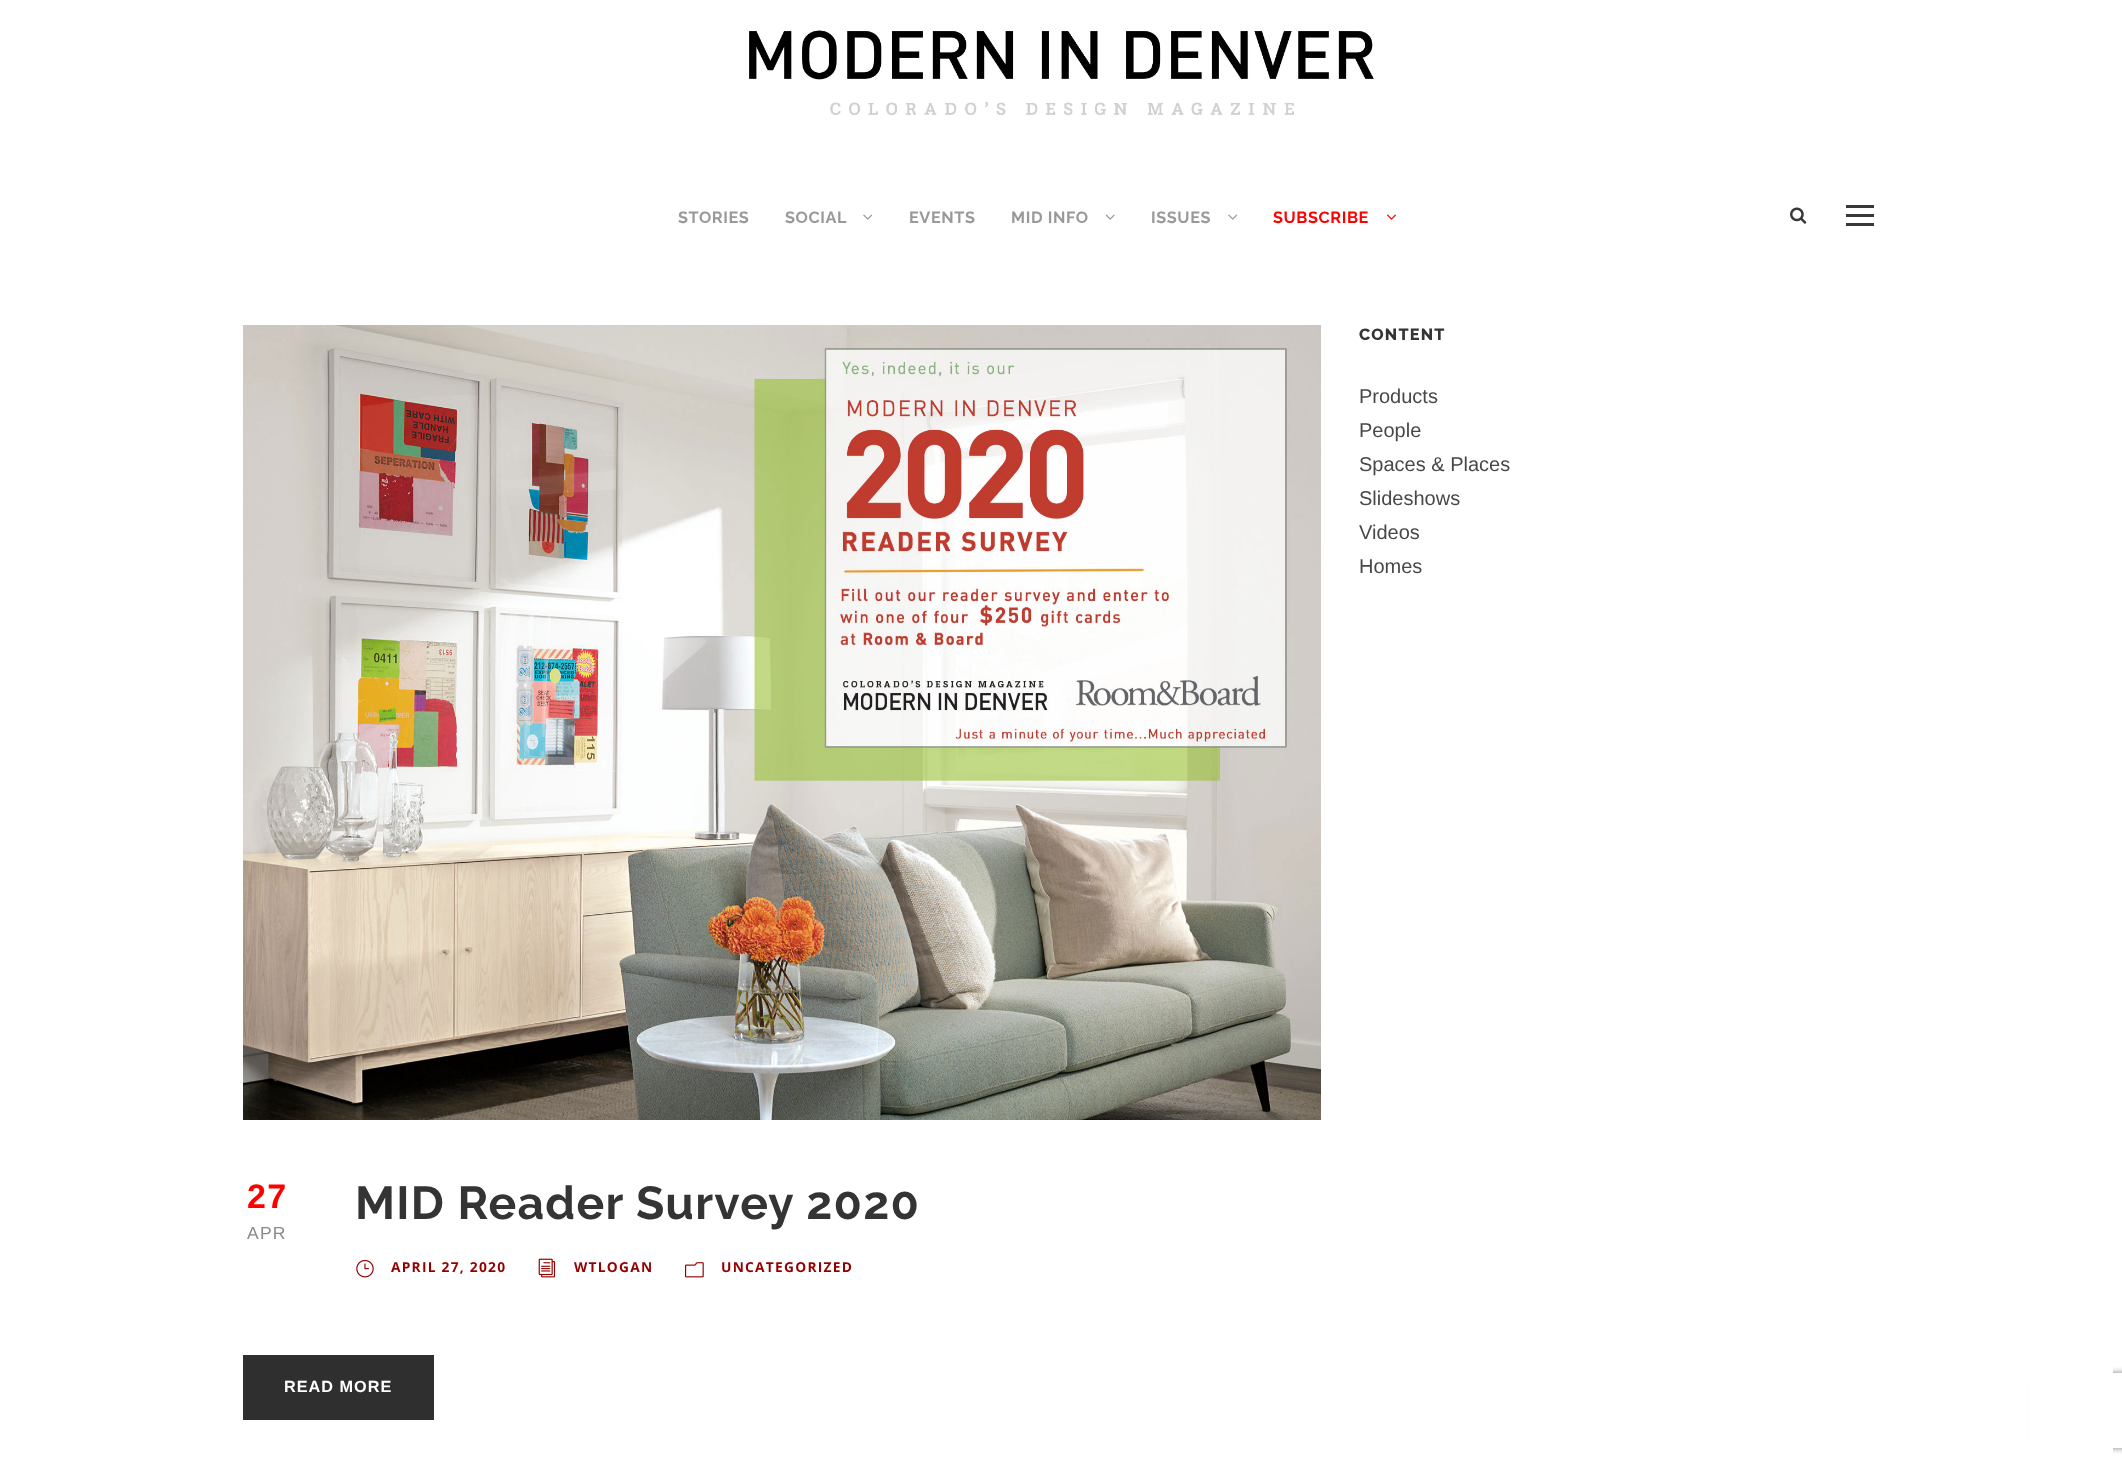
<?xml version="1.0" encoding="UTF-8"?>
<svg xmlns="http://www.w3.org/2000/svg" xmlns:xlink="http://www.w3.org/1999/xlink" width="2122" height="1464">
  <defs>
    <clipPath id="clip1"><path d="M 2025 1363 h 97 v 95 h -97 z m 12.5 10 h 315 c 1.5 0 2.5 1 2.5 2.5 v 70 c 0 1.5 -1 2.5 -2.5 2.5 h -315 c -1.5 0 -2.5 -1 -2.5 -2.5 v -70 c 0 -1.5 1 -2.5 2.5 -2.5 z" clip-rule="evenodd" /></clipPath>
  </defs>
  <rect width="100%" height="100%" fill="#ffffff" />
  <g clip-path="url(#clip1)">
    <rect x="2035" y="1373" width="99" height="75" rx="2.5" fill="#808080" filter="blur(3px)" />
  </g>
  <rect x="2029" y="1367" width="84" height="87" fill="#ffffff" />
  <image x="749" y="30" width="625" height="85" xlink:href="image1.png" />
  <image x="863" y="214" width="10" height="6" xlink:href="image2.png" />
  <image x="1105" y="214" width="10" height="6" xlink:href="image3.png" />
  <image x="1228" y="214" width="10" height="6" xlink:href="image2.png" />
  <image x="1387" y="214" width="9" height="6" xlink:href="image4.png" />
  <image x="1790" y="207" width="17" height="17" xlink:href="image5.png" />
  <rect x="1846" y="205" width="28" height="3" fill="#383838" />
  <rect x="1846" y="214" width="28" height="3" fill="#383838" />
  <rect x="1846" y="223" width="28" height="3" fill="#383838" />
  <image x="243" y="325" width="1078" height="795" xlink:href="image6.png" />
  <image x="356" y="1259" width="18" height="19" xlink:href="image7.png" />
  <image x="538" y="1258" width="18" height="20" xlink:href="image8.png" />
  <image x="685" y="1262" width="19" height="16" xlink:href="image9.png" />
  <rect x="243" y="1355" width="191" height="65" fill="#2f2f2f" />
  <text x="678" y="223" style="font-family: Raleway; font-size: 16.25px; font-weight: bold; letter-spacing: 0.6px; fill: #999999">STORIES</text>
  <text x="785" y="223" style="font-family: Raleway; font-size: 16.25px; font-weight: bold; letter-spacing: 0.6px; fill: #999999">SOCIAL</text>
  <text x="909" y="223" style="font-family: Raleway; font-size: 16.25px; font-weight: bold; letter-spacing: 0.6px; fill: #999999">EVENTS</text>
  <text x="1011" y="223" style="font-family: Raleway; font-size: 16.25px; font-weight: bold; letter-spacing: 0.6px; fill: #999999">MID INFO</text>
  <text x="1151" y="223" style="font-family: Raleway; font-size: 16.25px; font-weight: bold; letter-spacing: 0.6px; fill: #999999">ISSUES</text>
  <text x="1273" y="223" style="font-family: Raleway; font-size: 16.25px; font-weight: bold; letter-spacing: 0.6px; fill: #ff0000">SUBSCRIBE</text>
  <text x="1359" y="340" style="font-family: Raleway; font-size: 16.25px; font-weight: 800; letter-spacing: 1.25px; fill: #343434">CONTENT</text>
  <text x="1359" y="403" style="font-family: Liberation Sans; font-size: 20px; fill: #484848">Products</text>
  <text x="1359" y="437" style="font-family: Liberation Sans; font-size: 20px; fill: #484848">People</text>
  <text x="1359" y="471" style="font-family: Liberation Sans; font-size: 20px; fill: #484848">Spaces &amp; Places</text>
  <text x="1359" y="505" style="font-family: Liberation Sans; font-size: 20px; fill: #484848">Slideshows</text>
  <text x="1359" y="539" style="font-family: Liberation Sans; font-size: 20px; fill: #484848">Videos</text>
  <text x="1359" y="573" style="font-family: Liberation Sans; font-size: 20px; fill: #484848">Homes</text>
  <text x="247" y="1208" style="font-family: Liberation Sans; font-size: 34px; font-weight: bold; letter-spacing: 1.25px; fill: #ff0000">27</text>
  <text x="247" y="1239" style="font-family: Liberation Sans; font-size: 17.5px; letter-spacing: 1.25px; fill: #8a8a8a">APR</text>
  <text x="355" y="1219" style="font-family: Raleway; font-size: 46.25px; font-weight: bold; letter-spacing: 1.25px; fill: #343434">MID Reader Survey 2020</text>
  <text x="391" y="1272" style="font-family: Open Sans; font-size: 13.75px; font-weight: bold; letter-spacing: 1.25px; fill: #930000">APRIL 27, 2020</text>
  <text x="574" y="1272" style="font-family: Open Sans; font-size: 13.75px; font-weight: bold; letter-spacing: 1.25px; fill: #930000">WTLOGAN</text>
  <text x="721" y="1272" style="font-family: Open Sans; font-size: 13.75px; font-weight: bold; letter-spacing: 1.25px; fill: #930000">UNCATEGORIZED</text>
  <text x="284" y="1392" style="font-family: Liberation Sans; font-size: 16.25px; font-weight: bold; letter-spacing: 1px; fill: #ffffff">READ MORE</text>
</svg>
